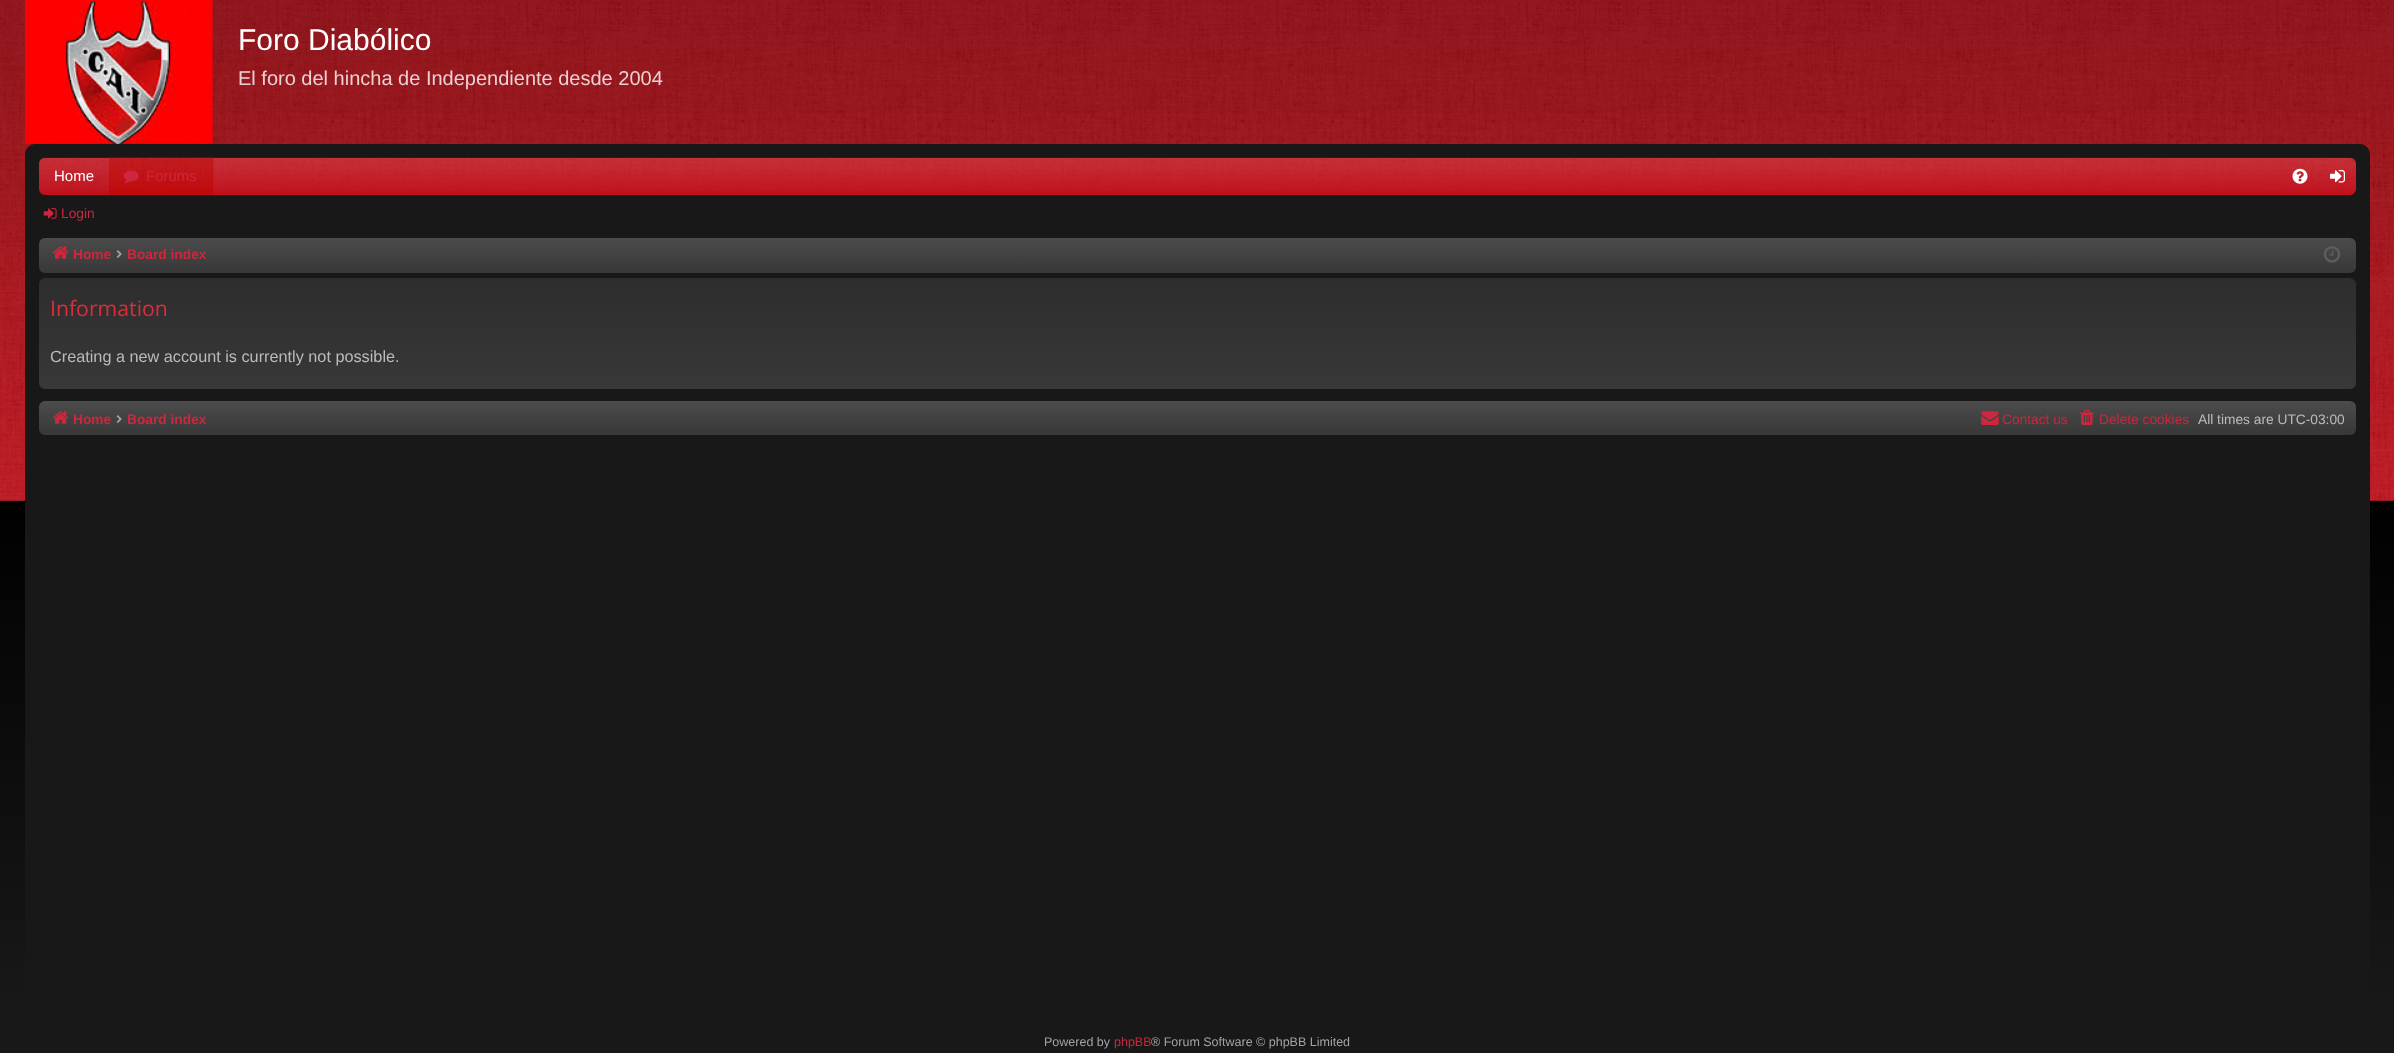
<?xml version="1.0" encoding="UTF-8"?>
<svg xmlns="http://www.w3.org/2000/svg" xmlns:xlink="http://www.w3.org/1999/xlink" width="2394" height="1053">
  <defs>
    <linearGradient id="g1" gradientUnits="userSpaceOnUse" x1="1198" y1="0" x2="1198" y2="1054"><stop offset="0" stop-color="#000000" /><stop offset="0.47" stop-color="#000000" /><stop offset="0.95" stop-color="#181818" /></linearGradient>
    <linearGradient id="g2" gradientUnits="userSpaceOnUse" x1="1198" y1="237" x2="1198" y2="273"><stop offset="0" stop-color="#ffffff" stop-opacity="0.1" /><stop offset="1" stop-color="#ffffff" stop-opacity="0" /></linearGradient>
    <linearGradient id="g3" gradientUnits="userSpaceOnUse" x1="1198" y1="277" x2="1198" y2="389"><stop offset="0" stop-color="#000000" stop-opacity="0.2" /><stop offset="1" stop-color="#000000" stop-opacity="0" /></linearGradient>
    <linearGradient id="g4" gradientUnits="userSpaceOnUse" x1="1198" y1="401" x2="1198" y2="435"><stop offset="0" stop-color="#ffffff" stop-opacity="0.1" /><stop offset="1" stop-color="#ffffff" stop-opacity="0" /></linearGradient>
    <clipPath id="clip1"><rect x="128" y="240" width="78" height="28" /></clipPath>
    <clipPath id="clip2"><rect x="128" y="405" width="78" height="28" /></clipPath>
  </defs>
  <rect width="100%" height="100%" fill="#ffffff" />
  <rect y="501" width="2394" height="552" fill="url(#g1)" />
  <rect width="2394" height="501" fill="#c10f19" />
  <image x="0" y="0" width="2394" height="502" xlink:href="image1.png" />
  <rect y="500" width="2394" height="1" fill="#bf1a31" fill-opacity="0.2" />
  <image x="25" y="0" width="188" height="144" xlink:href="image2.png" />
  <rect x="25.5" y="144.5" width="2344" height="874" rx="9.5" fill="#181818" stroke="#181818" />
  <rect x="39" y="158" width="2317" height="37" rx="6" fill="#c1111c" />
  <image x="39" y="157" width="2317" height="34" xlink:href="image3.png" />
  <rect x="109" y="158" width="104" height="37" fill="#c1090c" />
  <image x="109" y="157" width="104" height="34" xlink:href="image4.png" />
  <image x="123" y="170" width="16" height="14" xlink:href="image5.png" />
  <image x="2292" y="168" width="16" height="16" xlink:href="image6.png" />
  <image x="2330" y="170" width="15" height="13" xlink:href="image7.png" />
  <image x="43" y="208" width="14" height="11" xlink:href="image8.png" />
  <rect x="39" y="238" width="2317" height="35" rx="6" fill="#383838" />
  <rect x="39" y="238" width="2317" height="35" rx="6" fill="url(#g2)" />
  <image x="52" y="246" width="17" height="13" xlink:href="image9.png" />
  <image x="116" y="250" width="6" height="8" xlink:href="image10.png" />
  <image x="2323" y="246" width="18" height="17" xlink:href="image11.png" />
  <rect x="39" y="278" width="2317" height="111" rx="6" fill="#383838" />
  <rect x="39" y="278" width="2317" height="111" rx="6" fill="url(#g3)" />
  <rect x="39" y="401" width="2317" height="34" rx="6" fill="#383838" />
  <rect x="39" y="401" width="2317" height="34" rx="6" fill="url(#g4)" />
  <image x="52" y="411" width="17" height="13" xlink:href="image12.png" />
  <image x="116" y="415" width="6" height="8" xlink:href="image13.png" />
  <image x="1981" y="411" width="18" height="14" xlink:href="image14.png" />
  <image x="2080" y="410" width="14" height="15" xlink:href="image15.png" />
  <text x="238" y="50" style="font-family: Liberation Sans; font-size: 30px; fill: #ffffff">Foro Diabólico</text>
  <text x="238" y="85" style="font-family: Liberation Sans; font-size: 20px; fill: #ead1d2">El foro del hincha de Independiente desde 2004</text>
  <text x="54" y="181" style="font-family: Liberation Sans; font-size: 15px; fill: #ffffff">Home</text>
  <text x="146" y="181" style="font-family: Liberation Sans; font-size: 15px; fill: #cc273e">Forums</text>
  <text x="61" y="218" style="font-family: Liberation Sans; font-size: 13.75px; fill: #cc273e">Login</text>
  <text x="73" y="259" style="font-family: Liberation Sans; font-size: 13.75px; font-weight: bold; fill: #cc273e">Home</text>
  <g clip-path="url(#clip1)">
    <text x="127" y="259" style="font-family: Liberation Sans; font-size: 13.75px; font-weight: bold; fill: #cc273e">Board index</text>
  </g>
  <text x="50" y="316" style="font-family: Open Sans; font-size: 21.25px; fill: #dc2d3a">Information</text>
  <text x="50" y="362" style="font-family: Liberation Sans; font-size: 16.25px; fill: #bbbbbb">Creating a new account is currently not possible.</text>
  <text x="73" y="424" style="font-family: Liberation Sans; font-size: 13.75px; font-weight: bold; fill: #cc273e">Home</text>
  <g clip-path="url(#clip2)">
    <text x="127" y="424" style="font-family: Liberation Sans; font-size: 13.75px; font-weight: bold; fill: #cc273e">Board index</text>
  </g>
  <text x="2002" y="424" style="font-family: Liberation Sans; font-size: 13.75px; fill: #cc273e">Contact us</text>
  <text x="2099" y="424" style="font-family: Liberation Sans; font-size: 13.75px; fill: #cc273e">Delete cookies</text>
  <text x="2198" y="424" style="font-family: Liberation Sans; font-size: 13.75px; fill: #bbbbbb">All times are UTC-03:00</text>
  <text x="1044" y="1046" style="font-family: Liberation Sans; font-size: 12.5px; fill: #a3a3a3">Powered by</text>
  <text x="1114" y="1046" style="font-family: Liberation Sans; font-size: 12.5px; fill: #cc273e">phpBB</text>
  <text x="1151" y="1046" style="font-family: Liberation Sans; font-size: 12.5px; fill: #a3a3a3">® Forum Software © phpBB Limited</text>
</svg>
